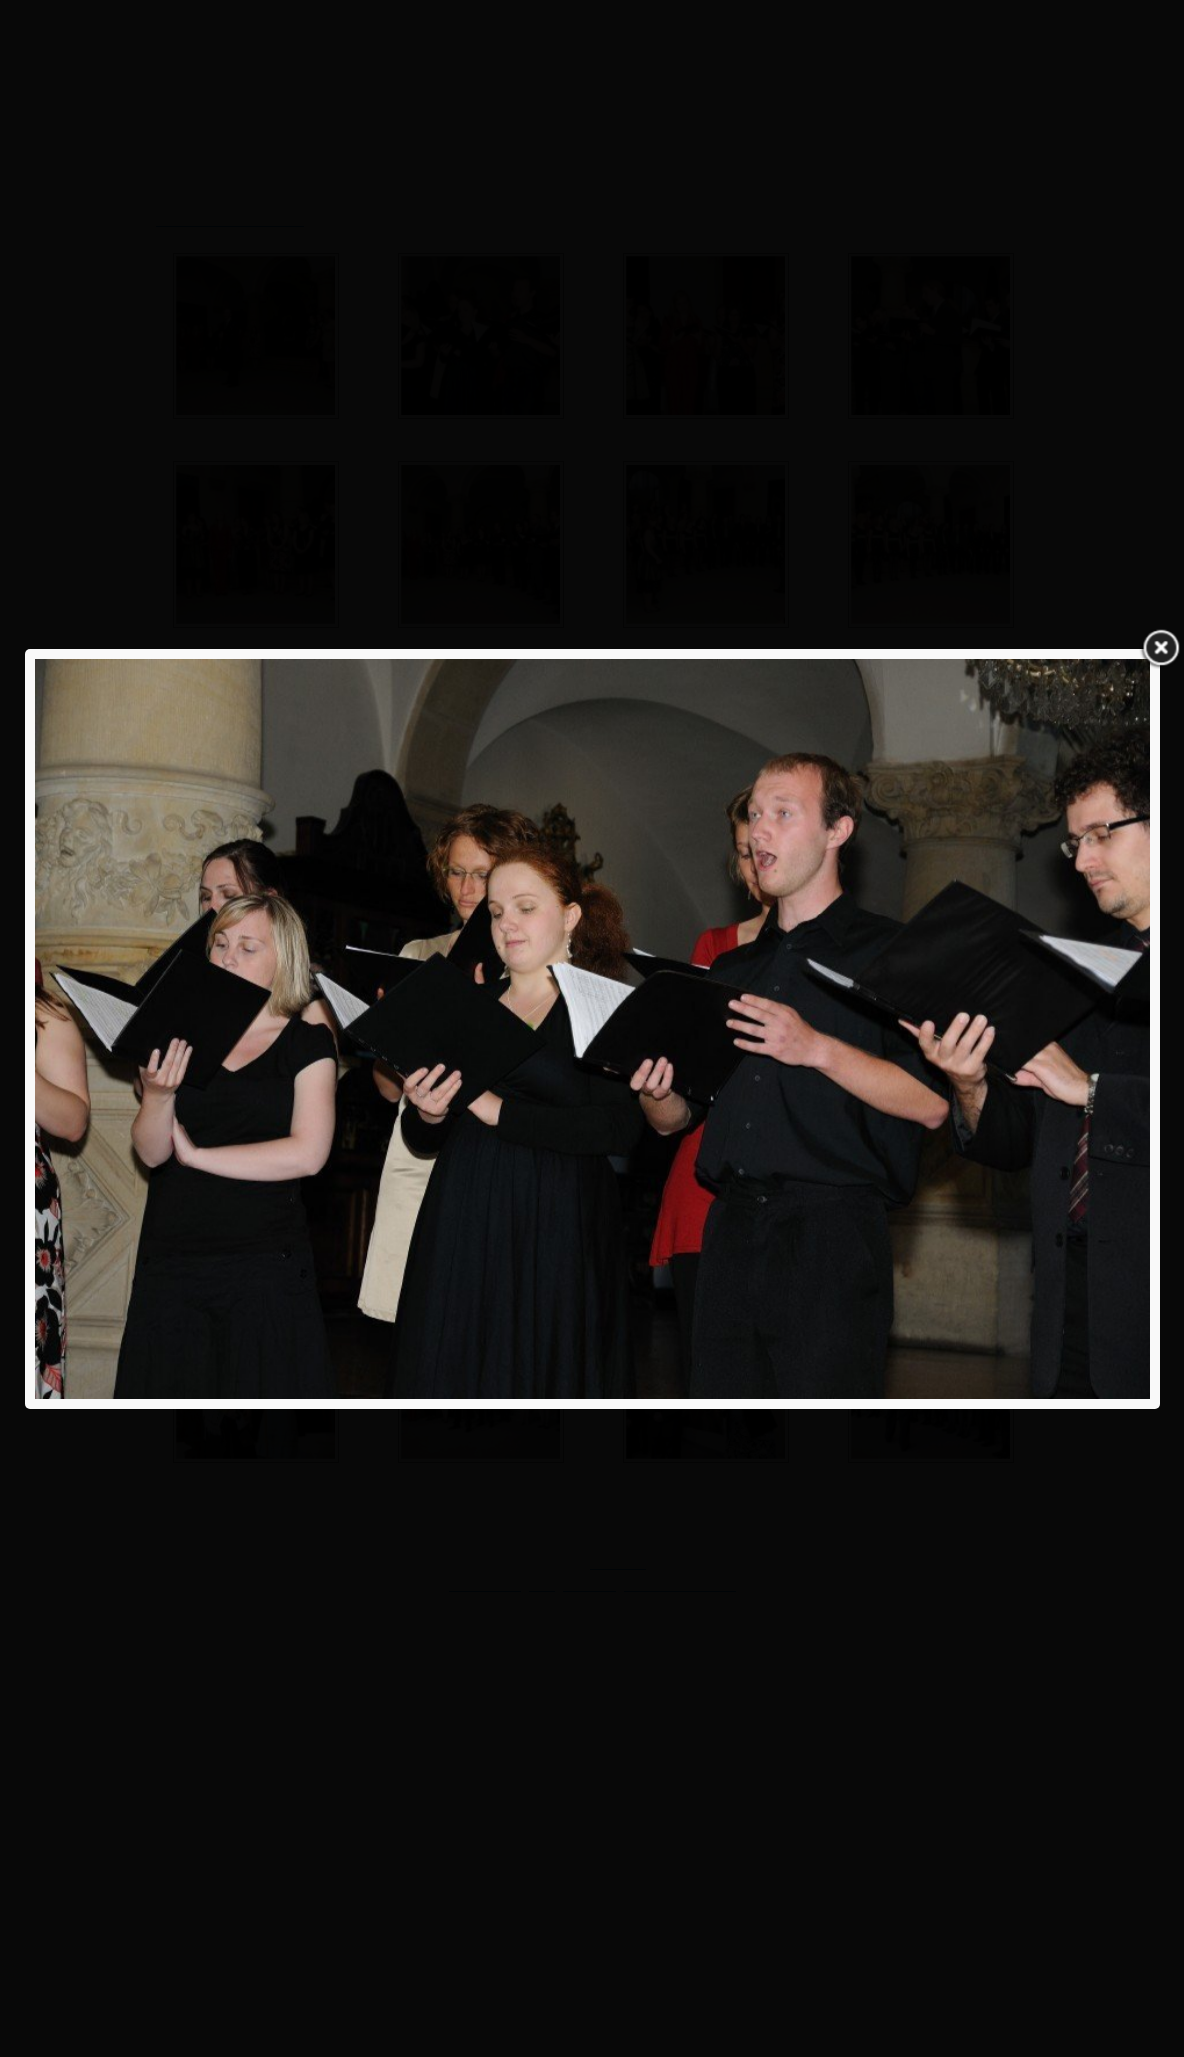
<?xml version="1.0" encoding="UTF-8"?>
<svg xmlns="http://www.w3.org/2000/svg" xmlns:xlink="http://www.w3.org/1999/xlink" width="1184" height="2057">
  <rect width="100%" height="100%" fill="#080808" />
  <rect x="156" y="226" width="148" height="1" fill="#000407" />
  <rect x="173.5" y="253.5" width="165" height="165" fill="none" stroke="#040404" />
  <image x="176" y="256" width="159" height="159" xlink:href="image1.png" />
  <rect x="398.5" y="253.5" width="165" height="165" fill="none" stroke="#040404" />
  <image x="401" y="256" width="159" height="159" xlink:href="image2.png" />
  <rect x="623.5" y="253.5" width="165" height="165" fill="none" stroke="#040404" />
  <image x="626" y="256" width="159" height="159" xlink:href="image3.png" />
  <rect x="848.5" y="253.5" width="165" height="165" fill="none" stroke="#040404" />
  <image x="851" y="256" width="159" height="159" xlink:href="image4.png" />
  <rect x="173.5" y="461.5" width="165" height="166" fill="none" stroke="#040404" />
  <image x="176" y="465" width="159" height="159" xlink:href="image5.png" />
  <rect x="398.5" y="461.5" width="165" height="166" fill="none" stroke="#040404" />
  <image x="401" y="465" width="159" height="159" xlink:href="image6.png" />
  <rect x="623.5" y="461.5" width="165" height="166" fill="none" stroke="#040404" />
  <image x="626" y="465" width="159" height="159" xlink:href="image7.png" />
  <rect x="848.5" y="461.5" width="165" height="166" fill="none" stroke="#040404" />
  <image x="851" y="465" width="159" height="159" xlink:href="image8.png" />
  <rect x="173.5" y="1296.5" width="165" height="166" fill="none" stroke="#040404" />
  <image x="176" y="1409" width="159" height="50" xlink:href="image9.png" />
  <rect x="398.5" y="1296.5" width="165" height="166" fill="none" stroke="#040404" />
  <image x="401" y="1409" width="159" height="50" xlink:href="image10.png" />
  <rect x="623.5" y="1296.5" width="165" height="166" fill="none" stroke="#040404" />
  <image x="626" y="1409" width="159" height="50" xlink:href="image11.png" />
  <rect x="848.5" y="1296.5" width="165" height="166" fill="none" stroke="#040404" />
  <image x="851" y="1409" width="159" height="50" xlink:href="image12.png" />
  <rect x="590" y="1569" width="56" height="1" fill="#000407" />
  <rect x="449" y="1591" width="72" height="1" fill="#000407" />
  <rect x="529" y="1591" width="26" height="1" fill="#000407" />
  <rect x="563" y="1591" width="53" height="1" fill="#000407" />
  <rect x="624" y="1591" width="112" height="1" fill="#000407" />
  <rect x="25" y="649" width="1135" height="760" rx="5" fill="#f9f9f9" />
  <image x="35" y="659" width="1115" height="740" xlink:href="image14.png" />
  <image x="1139" y="629" width="41" height="40" xlink:href="image13.png" />
</svg>
